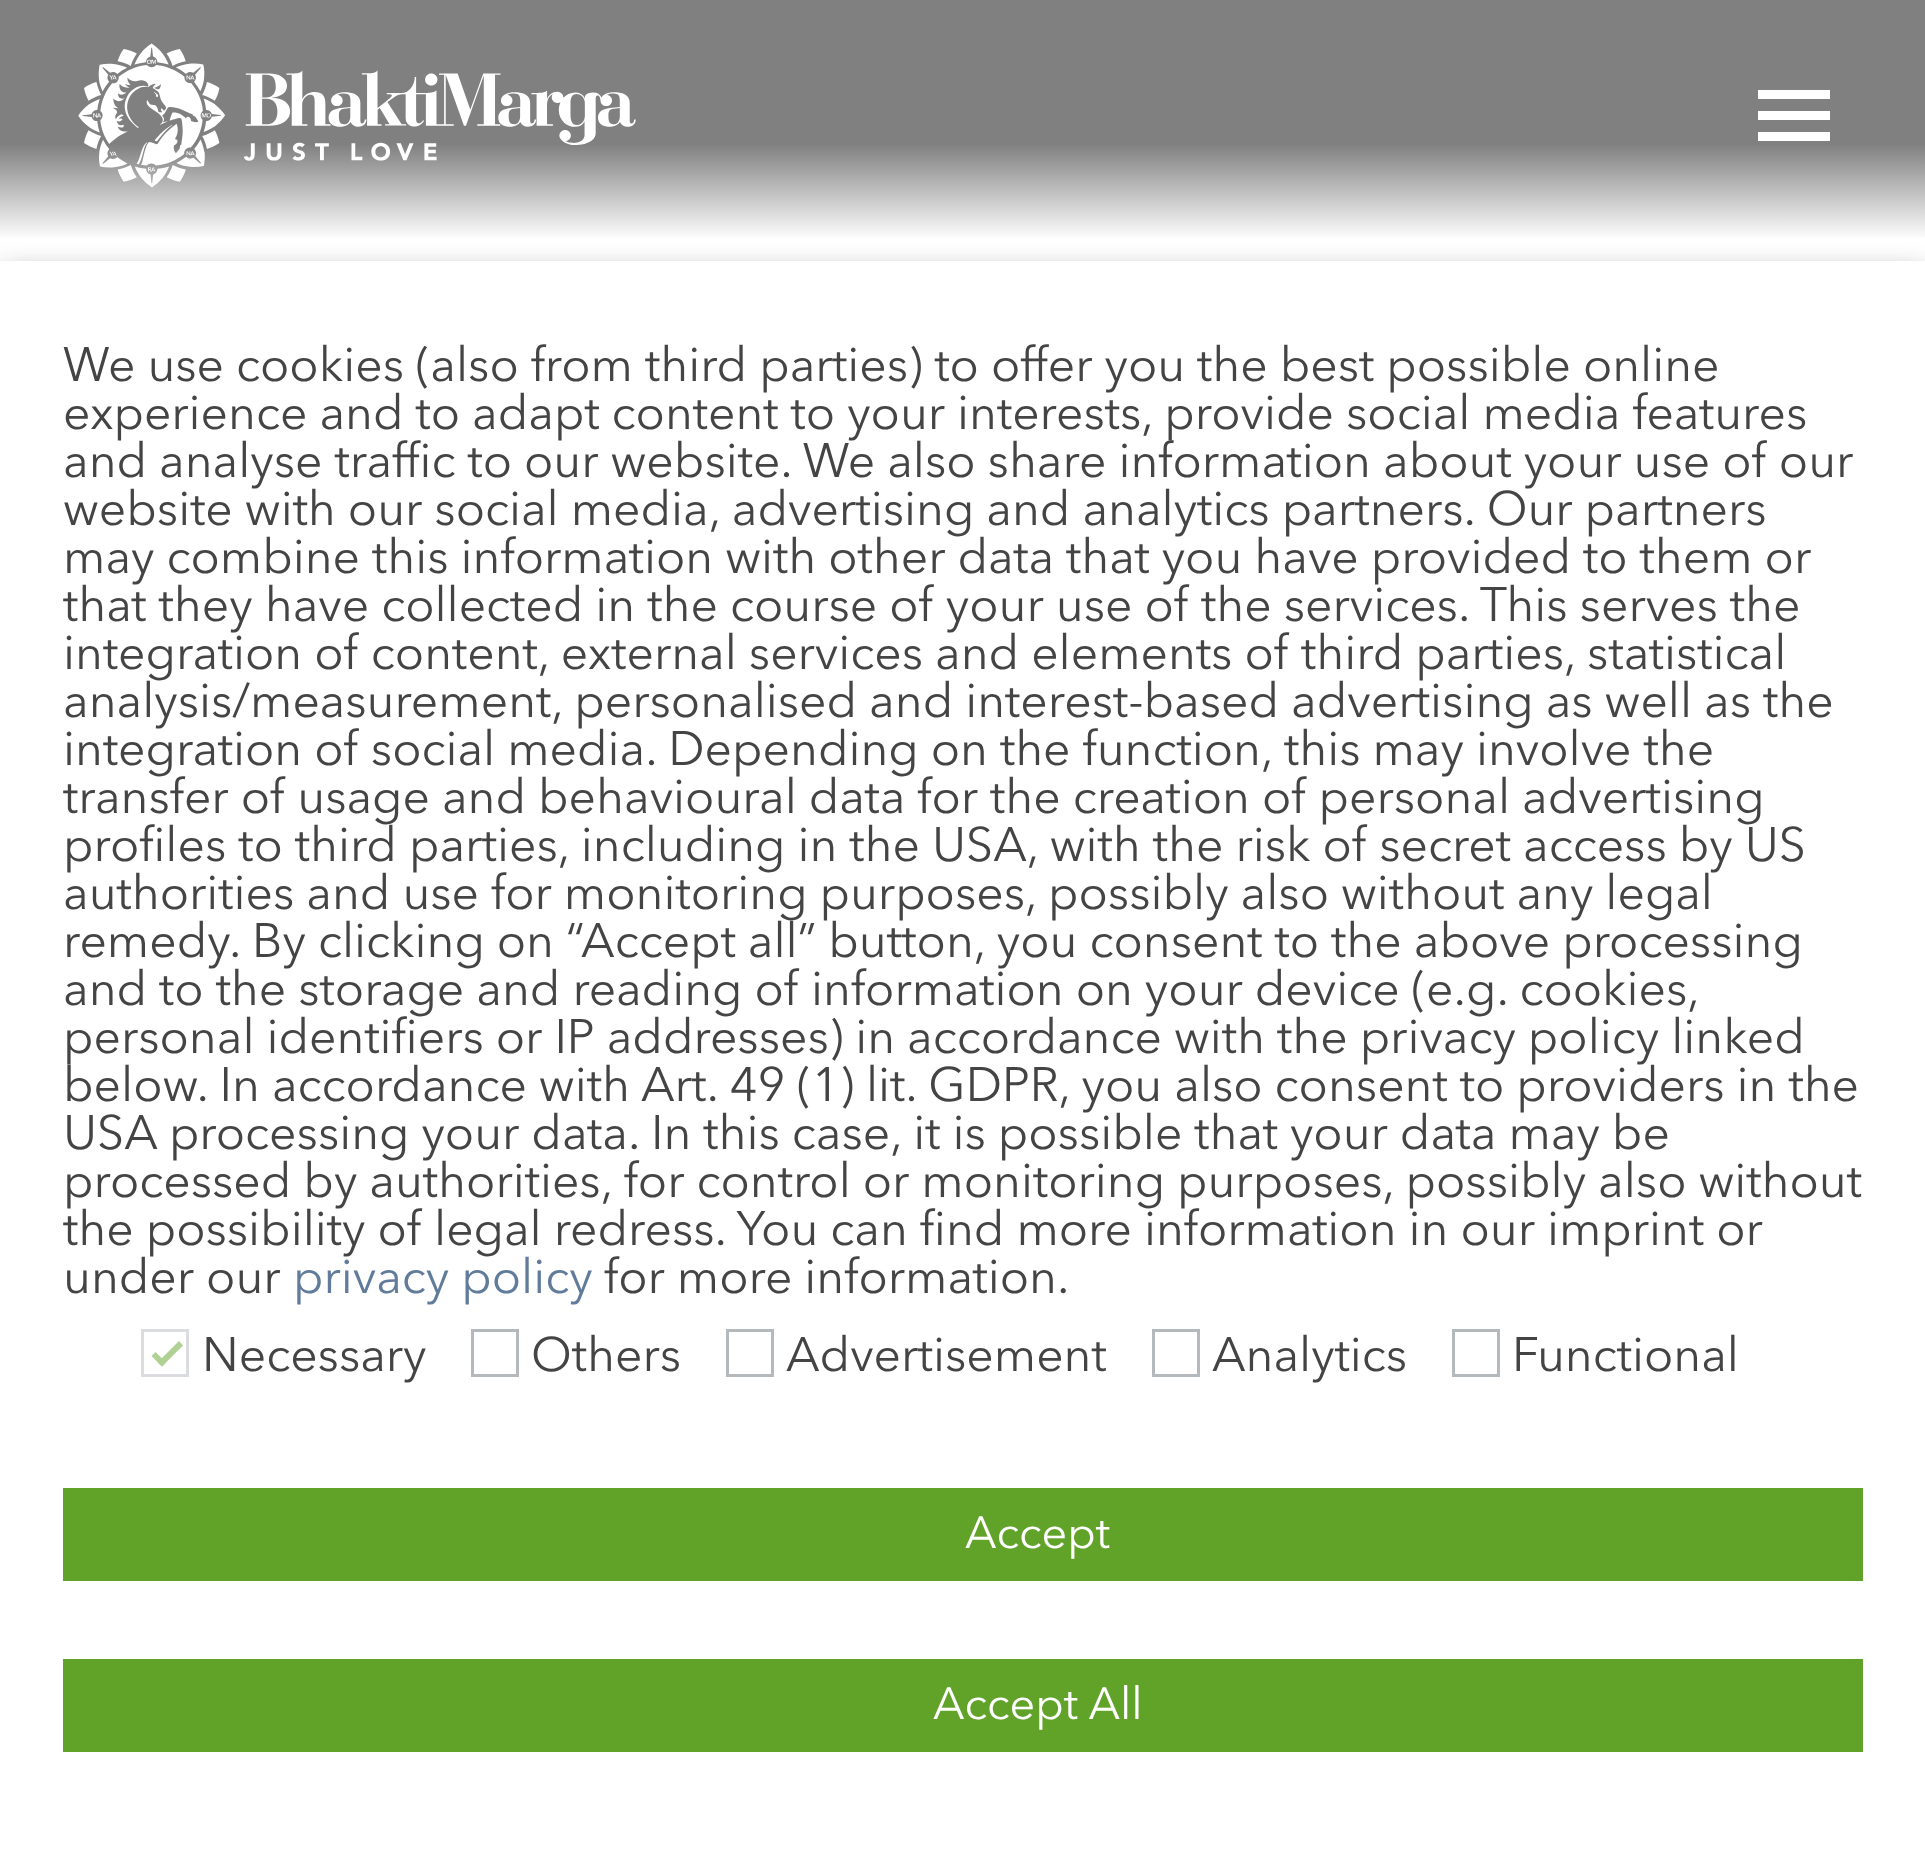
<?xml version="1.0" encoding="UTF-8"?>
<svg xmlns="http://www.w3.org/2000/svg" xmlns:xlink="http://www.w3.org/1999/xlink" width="1925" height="1874">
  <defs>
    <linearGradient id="g1" gradientUnits="userSpaceOnUse" x1="999" y1="0" x2="999" y2="240"><stop offset="0.6" stop-color="#808080" /><stop offset="1" stop-color="#ffffff" /></linearGradient>
  </defs>
  <rect width="100%" height="100%" fill="#ffffff" />
  <rect width="1925" height="238" fill="url(#g1)" />
  <image x="78" y="43" width="558" height="145" xlink:href="image1.png" />
  <rect x="1758" y="90" width="72" height="9" fill="#ffffff" />
  <rect x="1758" y="111" width="72" height="9" fill="#ffffff" />
  <rect x="1758" y="132" width="72" height="9" fill="#ffffff" />
  <rect y="276" width="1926" height="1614" fill="#000000" fill-opacity="0.5" filter="blur(15px)" />
  <rect y="261" width="1925" height="1613" fill="#ffffff" />
  <rect x="142.5" y="1330.5" width="45" height="45" fill="none" stroke="#dadcdf" stroke-width="3" />
  <path d="M 179 1341 l 4 4.5 l -21 21 l -4.5 -4 z" fill="#b0d194" />
  <path d="M 155.5 1352 l 10.5 10.5 l -4 4 l -10.5 -10.5 z" fill="#b0d194" />
  <rect x="472.5" y="1330.5" width="45" height="45" fill="none" stroke="#b4b9be" stroke-width="3" />
  <rect x="727.5" y="1330.5" width="45" height="45" fill="none" stroke="#b4b9be" stroke-width="3" />
  <rect x="1153.5" y="1330.5" width="45" height="45" fill="none" stroke="#b4b9be" stroke-width="3" />
  <rect x="1453.5" y="1330.5" width="45" height="45" fill="none" stroke="#b4b9be" stroke-width="3" />
  <rect x="63" y="1488" width="1800" height="93" fill="#61a229" />
  <rect x="63" y="1659" width="1800" height="93" fill="#61a229" />
  <text x="63" y="381" style="font-family: Avenir Next; font-size: 48px; fill: #444444">We use cookies (also from third parties) to offer you the best possible online</text>
  <text x="63" y="429" style="font-family: Avenir Next; font-size: 48px; fill: #444444">experience and to adapt content to your interests, provide social media features</text>
  <text x="63" y="477" style="font-family: Avenir Next; font-size: 48px; fill: #444444">and analyse traffic to our website. We also share information about your use of our</text>
  <text x="63" y="525" style="font-family: Avenir Next; font-size: 48px; fill: #444444">website with our social media, advertising and analytics partners. Our partners</text>
  <text x="63" y="573" style="font-family: Avenir Next; font-size: 48px; fill: #444444">may combine this information with other data that you have provided to them or</text>
  <text x="63" y="621" style="font-family: Avenir Next; font-size: 48px; fill: #444444">that they have collected in the course of your use of the services. This serves the</text>
  <text x="63" y="669" style="font-family: Avenir Next; font-size: 48px; fill: #444444">integration of content, external services and elements of third parties, statistical</text>
  <text x="63" y="717" style="font-family: Avenir Next; font-size: 48px; fill: #444444">analysis/measurement, personalised and interest-based advertising as well as the</text>
  <text x="63" y="765" style="font-family: Avenir Next; font-size: 48px; fill: #444444">integration of social media. Depending on the function, this may involve the</text>
  <text x="63" y="813" style="font-family: Avenir Next; font-size: 48px; fill: #444444">transfer of usage and behavioural data for the creation of personal advertising</text>
  <text x="63" y="861" style="font-family: Avenir Next; font-size: 48px; fill: #444444">profiles to third parties, including in the USA, with the risk of secret access by US</text>
  <text x="63" y="909" style="font-family: Avenir Next; font-size: 48px; fill: #444444">authorities and use for monitoring purposes, possibly also without any legal</text>
  <text x="63" y="957" style="font-family: Avenir Next; font-size: 48px; fill: #444444">remedy. By clicking on “Accept all” button, you consent to the above processing</text>
  <text x="63" y="1005" style="font-family: Avenir Next; font-size: 48px; fill: #444444">and to the storage and reading of information on your device (e.g. cookies,</text>
  <text x="63" y="1053" style="font-family: Avenir Next; font-size: 48px; fill: #444444">personal identifiers or IP addresses) in accordance with the privacy policy linked</text>
  <text x="63" y="1101" style="font-family: Avenir Next; font-size: 48px; fill: #444444">below. In accordance with Art. 49 (1) lit. GDPR, you also consent to providers in the</text>
  <text x="63" y="1149" style="font-family: Avenir Next; font-size: 48px; fill: #444444">USA processing your data. In this case, it is possible that your data may be</text>
  <text x="63" y="1197" style="font-family: Avenir Next; font-size: 48px; fill: #444444">processed by authorities, for control or monitoring purposes, possibly also without</text>
  <text x="63" y="1245" style="font-family: Avenir Next; font-size: 48px; fill: #444444">the possibility of legal redress. You can find more information in our imprint or</text>
  <text x="63" y="1293" style="font-family: Avenir Next; font-size: 48px; fill: #444444">under our</text>
  <text x="293" y="1293" style="font-family: Avenir Next; font-size: 48px; fill: #617b9b">privacy policy</text>
  <text x="604" y="1293" style="font-family: Avenir Next; font-size: 48px; fill: #444444">for more information.</text>
  <text x="202" y="1371" style="font-family: Avenir Next; font-size: 48px; fill: #444444">Necessary</text>
  <text x="531" y="1371" style="font-family: Avenir Next; font-size: 48px; fill: #444444">Others</text>
  <text x="786" y="1371" style="font-family: Avenir Next; font-size: 48px; fill: #444444">Advertisement</text>
  <text x="1212" y="1371" style="font-family: Avenir Next; font-size: 48px; fill: #444444">Analytics</text>
  <text x="1512" y="1371" style="font-family: Avenir Next; font-size: 48px; fill: #444444">Functional</text>
  <text x="965" y="1548" style="font-family: Avenir Next; font-size: 45px; fill: #ffffff">Accept</text>
  <text x="933" y="1719" style="font-family: Avenir Next; font-size: 45px; fill: #ffffff">Accept All</text>
</svg>
